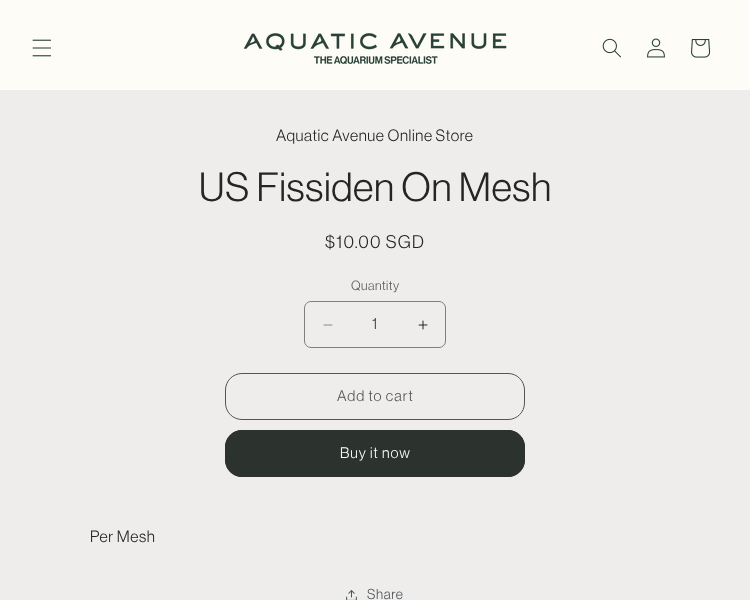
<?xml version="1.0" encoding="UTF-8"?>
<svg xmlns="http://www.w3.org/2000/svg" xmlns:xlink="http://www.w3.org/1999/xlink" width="750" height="600">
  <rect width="100%" height="100%" fill="#efecec" />
  <rect width="750" height="90" fill="#fdfcf7" />
  <image x="32" y="39" width="20" height="18" xlink:href="image1.png" />
  <image x="243" y="33" width="264" height="31" xlink:href="image2.png" />
  <image x="602" y="38" width="19" height="20" xlink:href="image3.png" />
  <image x="647" y="38" width="18" height="20" xlink:href="image4.png" />
  <image x="691" y="39" width="20" height="19" xlink:href="image5.png" />
  <image x="323" y="324" width="10" height="2" xlink:href="image6.png" />
  <image x="418" y="320" width="10" height="10" xlink:href="image7.png" />
  <rect x="304.5" y="301.5" width="141" height="46" rx="6.5" fill="none" stroke="#807f7f" />
  <rect x="225.5" y="373.5" width="299" height="46" rx="16.5" fill="none" stroke="#505655" />
  <rect x="225" y="430" width="300" height="47" rx="17" fill="#2c332f" />
  <rect x="225.5" y="430.5" width="299" height="46" rx="16.5" fill="none" stroke="#2c332f" />
  <image x="346" y="590" width="11" height="10" xlink:href="image8.png" />
  <text x="276" y="141" style="font-family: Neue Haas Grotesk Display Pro; font-size: 16px; font-weight: 300; letter-spacing: 0.6px; fill: #252525">Aquatic Avenue Online Store</text>
  <text x="199" y="201" style="font-family: Neue Haas Grotesk Display Pro; font-size: 40px; font-weight: 300; letter-spacing: 0.6px; fill: #252525">US Fissiden On Mesh</text>
  <text x="325" y="248" style="font-family: Neue Haas Grotesk Display Pro; font-size: 18px; font-weight: 300; letter-spacing: 1.25px; fill: #252525">$10.00 SGD</text>
  <text x="351" y="290" style="font-family: Neue Haas Grotesk Display Pro; font-size: 13px; font-weight: 300; letter-spacing: 0.5px; fill: #585757">Quantity</text>
  <text x="372" y="329" style="font-family: Neue Haas Grotesk Display Pro; font-size: 16px; font-weight: 300; fill: #434343">1</text>
  <text x="337" y="401" style="font-family: Neue Haas Grotesk Display Pro; font-size: 15px; font-weight: 300; letter-spacing: 1px; fill: #505655">Add to cart</text>
  <text x="340" y="458" style="font-family: Neue Haas Grotesk Display Pro; font-size: 15px; font-weight: 300; letter-spacing: 1px; fill: #ffffff">Buy it now</text>
  <text x="90" y="542" style="font-family: Neue Haas Grotesk Display Pro; font-size: 16px; font-weight: 300; letter-spacing: 0.6px; fill: #252525">Per Mesh</text>
  <text x="367" y="599" style="font-family: Neue Haas Grotesk Display Pro; font-size: 14px; font-weight: 300; letter-spacing: 0.6px; fill: #505655">Share</text>
</svg>
